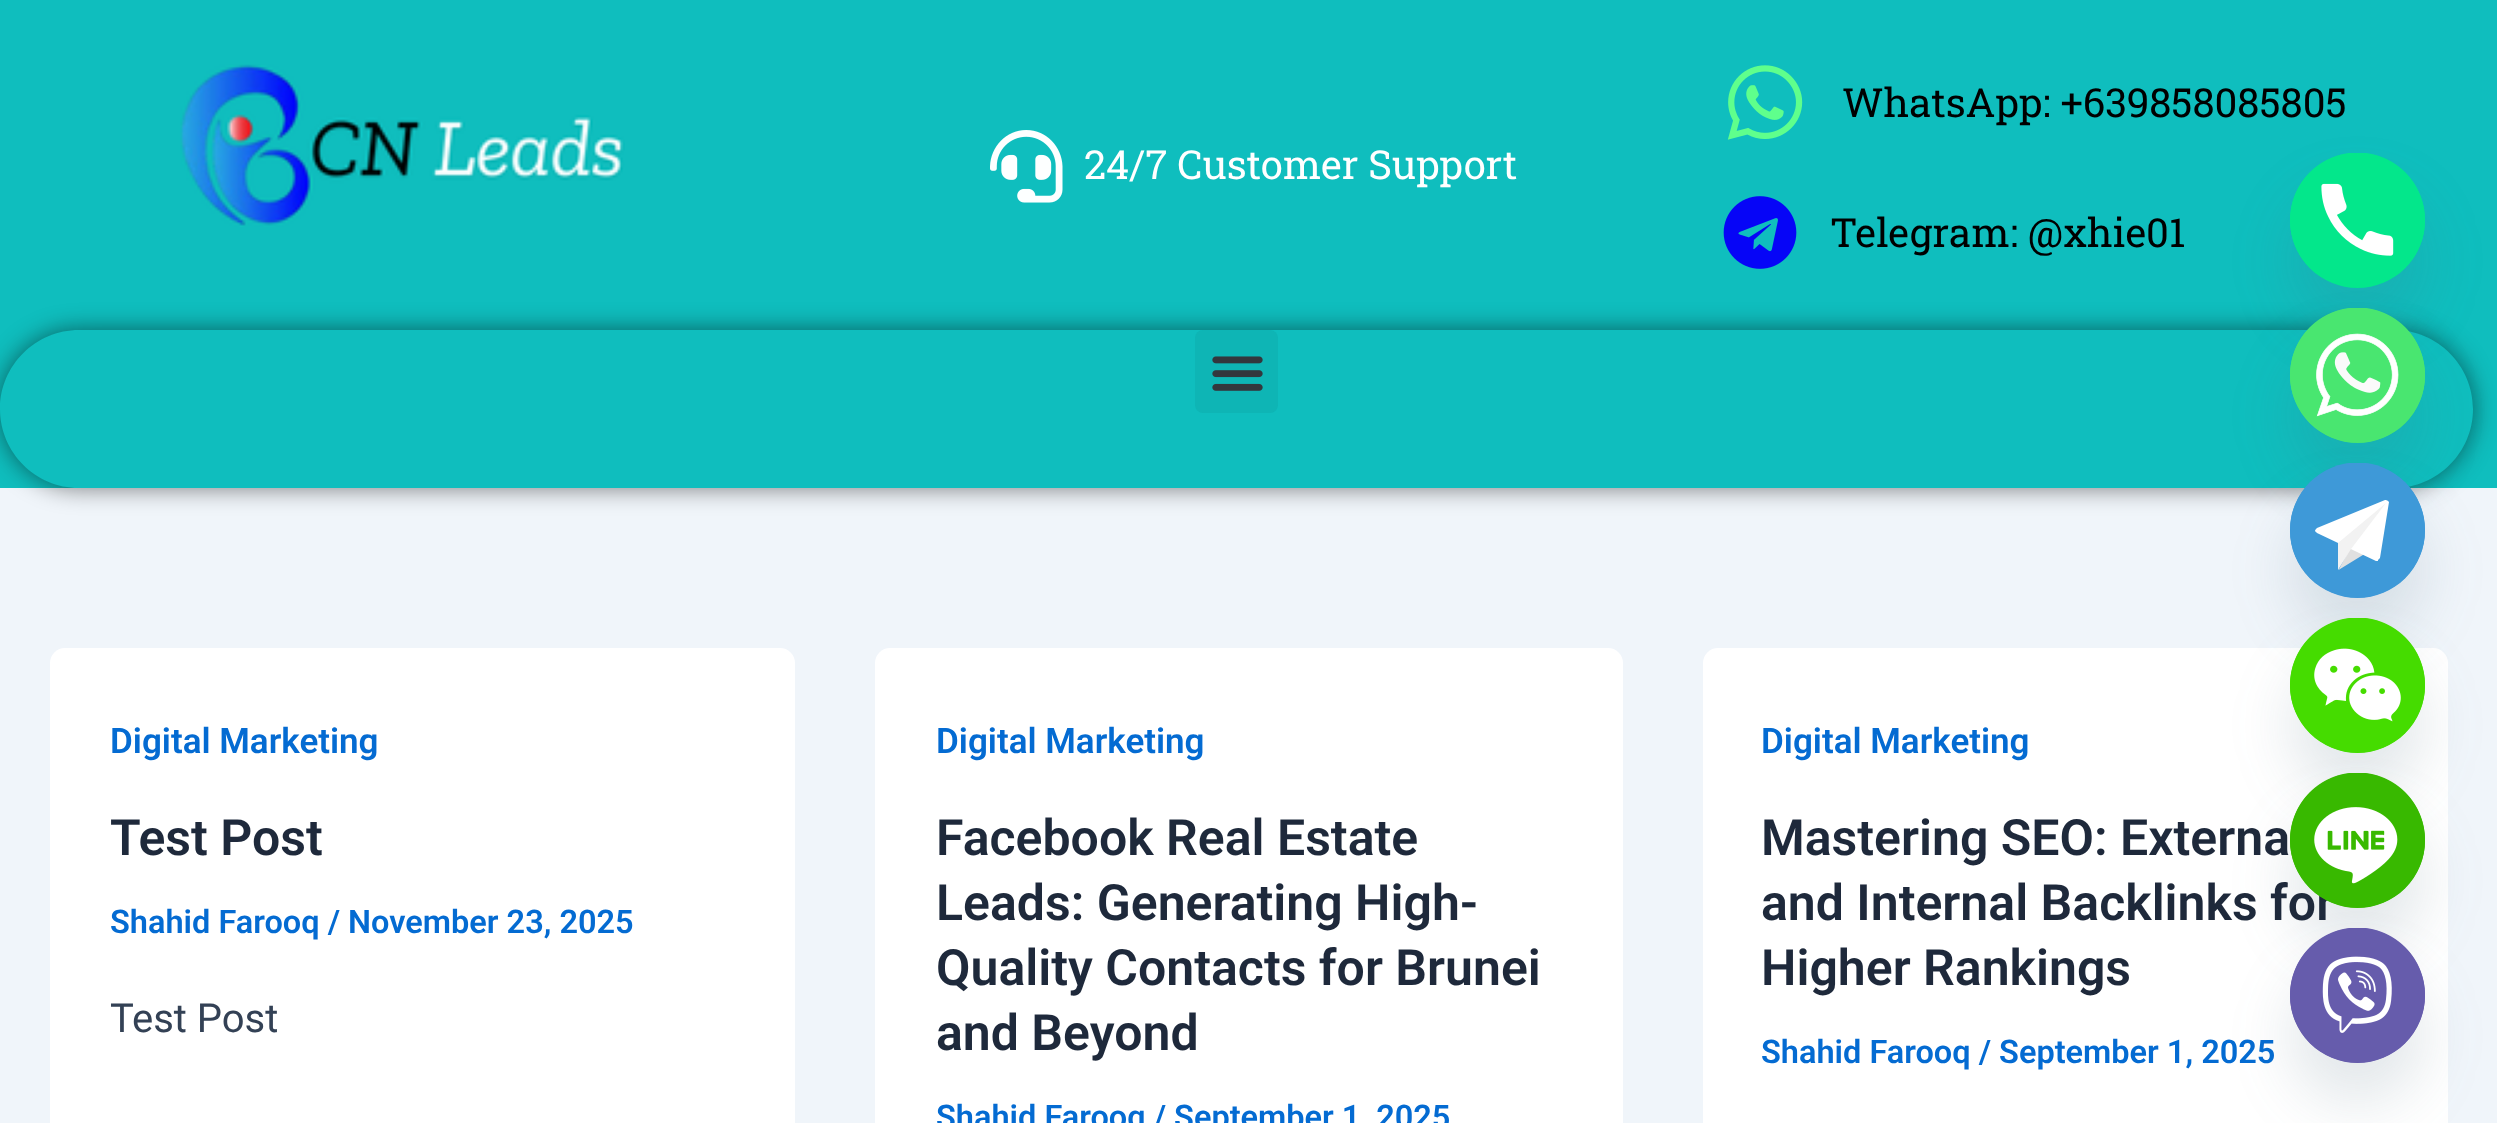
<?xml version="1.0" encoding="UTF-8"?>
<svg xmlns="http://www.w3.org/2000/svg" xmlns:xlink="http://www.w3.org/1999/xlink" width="2497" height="1123">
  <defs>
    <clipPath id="clip1"><path d="M 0 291 h 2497 v 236 h -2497 z m 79 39 h 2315 c 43.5 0 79 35.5 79 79 c 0 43.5 -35.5 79 -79 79 h -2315 c -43.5 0 -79 -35.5 -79 -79 c 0 -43.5 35.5 -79 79 -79 z" clip-rule="evenodd" /></clipPath>
    <clipPath id="clip2"><rect x="2290" y="463" width="135" height="135" /></clipPath>
  </defs>
  <rect width="100%" height="100%" fill="#f0f5fa" />
  <rect width="2497" height="488" fill="#0fbebe" />
  <image x="180" y="64" width="445" height="163" xlink:href="image1.png" />
  <image x="990" y="130" width="73" height="73" xlink:href="image2.png" />
  <image x="1727" y="65" width="76" height="75" xlink:href="image3.png" />
  <image x="1723" y="196" width="74" height="73" xlink:href="image4.png" />
  <g clip-path="url(#clip1)">
    <rect y="330" width="2473" height="158" rx="79" fill="#000000" fill-opacity="0.5" filter="blur(12.5px)" />
  </g>
  <rect x="1195" y="330" width="83" height="83" rx="8" fill="#0eb5b5" />
  <image x="1212" y="356" width="51" height="35" xlink:href="image5.png" />
  <rect x="50" y="648" width="745" height="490" rx="15" fill="#ffffff" />
  <rect x="875" y="648" width="748" height="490" rx="15" fill="#ffffff" />
  <rect x="1703" y="648" width="745" height="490" rx="15" fill="#ffffff" />
  <rect x="2290" y="193" width="135" height="135" rx="67.5" fill="#49687e" fill-opacity="0.16" filter="blur(30px)" />
  <circle cx="2357.5" cy="220.5" r="67.5" fill="#03e78b" />
  <image x="2290" y="153" width="135" height="112" xlink:href="image6.png" />
  <rect x="2290" y="348" width="135" height="135" rx="67.5" fill="#49687e" fill-opacity="0.16" filter="blur(30px)" />
  <circle cx="2357.5" cy="375.5" r="67.5" fill="#49e670" />
  <image x="2290" y="308" width="135" height="135" xlink:href="image7.png" />
  <rect x="2290" y="503" width="135" height="135" rx="67.5" fill="#49687e" fill-opacity="0.16" filter="blur(30px)" />
  <circle cx="2357.5" cy="530.5" r="67.5" fill="#3e99d8" />
  <g clip-path="url(#clip2)">
    <circle cx="2357.5" cy="530" r="67.5" fill="#3e99d8" />
  </g>
  <path d="M 2350.5 547.5 l -12 22.5 l 26 -16 z" fill="#e0e0e0" />
  <path d="M 2388 501 c -1 -1 -2 -1 -3 -1 l -68 28 c -1 1 -2 2 -2 3 c 0 0 1 1 2 2 l 59 28 h 1 c 1 0 1 0 1 -1 l 2 -2 l 9 -56 z" fill="#ffffff" />
  <path d="M 2386 503 l -48 40 v 27 l 13 -21 z" fill="#f2f2f2" />
  <rect x="2290" y="658" width="135" height="135" rx="67.5" fill="#49687e" fill-opacity="0.16" filter="blur(30px)" />
  <circle cx="2357.5" cy="685.5" r="67.5" fill="#45dc00" />
  <image x="2290" y="618" width="135" height="135" xlink:href="image8.png" />
  <rect x="2290" y="813" width="135" height="135" rx="67.5" fill="#49687e" fill-opacity="0.16" filter="blur(30px)" />
  <text x="1084" y="179" style="font-family: Roboto Slab; font-size: 40px; fill: #ffffff">24/7 Customer Support</text>
  <text x="1842" y="117" style="font-family: Roboto Slab; font-size: 40px; fill: #000000">WhatsApp: +639858085805</text>
  <text x="1830" y="247" style="font-family: Roboto Slab; font-size: 40px; fill: #000000">Telegram: @xhie01</text>
  <text x="110" y="753" style="font-family: Roboto; font-size: 35px; font-weight: 600; fill: #046bd2">Digital Marketing</text>
  <text x="110" y="855" style="font-family: Roboto; font-size: 50px; font-weight: 600; fill: #1e293b">Test Post</text>
  <text x="110" y="933" style="font-family: Roboto; font-size: 32.5px; font-weight: 600; fill: #046bd2">Shahid Farooq / November 23, 2025</text>
  <text x="110" y="1032" style="font-family: Roboto; font-size: 40px; fill: #334155">Test Post</text>
  <text x="936" y="753" style="font-family: Roboto; font-size: 35px; font-weight: 600; fill: #046bd2">Digital Marketing</text>
  <text x="936" y="855" style="font-family: Roboto; font-size: 50px; font-weight: 600; fill: #1e293b">Facebook Real Estate</text>
  <text x="936" y="920" style="font-family: Roboto; font-size: 50px; font-weight: 600; fill: #1e293b">Leads: Generating High-</text>
  <text x="936" y="985" style="font-family: Roboto; font-size: 50px; font-weight: 600; fill: #1e293b">Quality Contacts for Brunei</text>
  <text x="936" y="1050" style="font-family: Roboto; font-size: 50px; font-weight: 600; fill: #1e293b">and Beyond</text>
  <text x="936" y="1128" style="font-family: Roboto; font-size: 32.5px; font-weight: 600; fill: #046bd2">Shahid Farooq / September 1, 2025</text>
  <text x="1761" y="753" style="font-family: Roboto; font-size: 35px; font-weight: 600; fill: #046bd2">Digital Marketing</text>
  <text x="1761" y="855" style="font-family: Roboto; font-size: 50px; font-weight: 600; fill: #1e293b">Mastering SEO: Externa</text>
  <text x="1761" y="920" style="font-family: Roboto; font-size: 50px; font-weight: 600; fill: #1e293b">and Internal Backlinks for</text>
  <text x="1761" y="985" style="font-family: Roboto; font-size: 50px; font-weight: 600; fill: #1e293b">Higher Rankings</text>
  <text x="1761" y="1063" style="font-family: Roboto; font-size: 32.5px; font-weight: 600; fill: #046bd2">Shahid Farooq / September 1, 2025</text>
  <circle cx="2357.5" cy="840.5" r="67.5" fill="#38b900" />
  <image x="2290" y="773" width="135" height="135" xlink:href="image9.png" />
  <rect x="2290" y="968" width="135" height="135" rx="67.5" fill="#49687e" fill-opacity="0.16" filter="blur(30px)" />
  <circle cx="2357.5" cy="995.5" r="67.5" fill="#665cac" />
  <image x="2290" y="928" width="135" height="135" xlink:href="image10.png" />
</svg>
